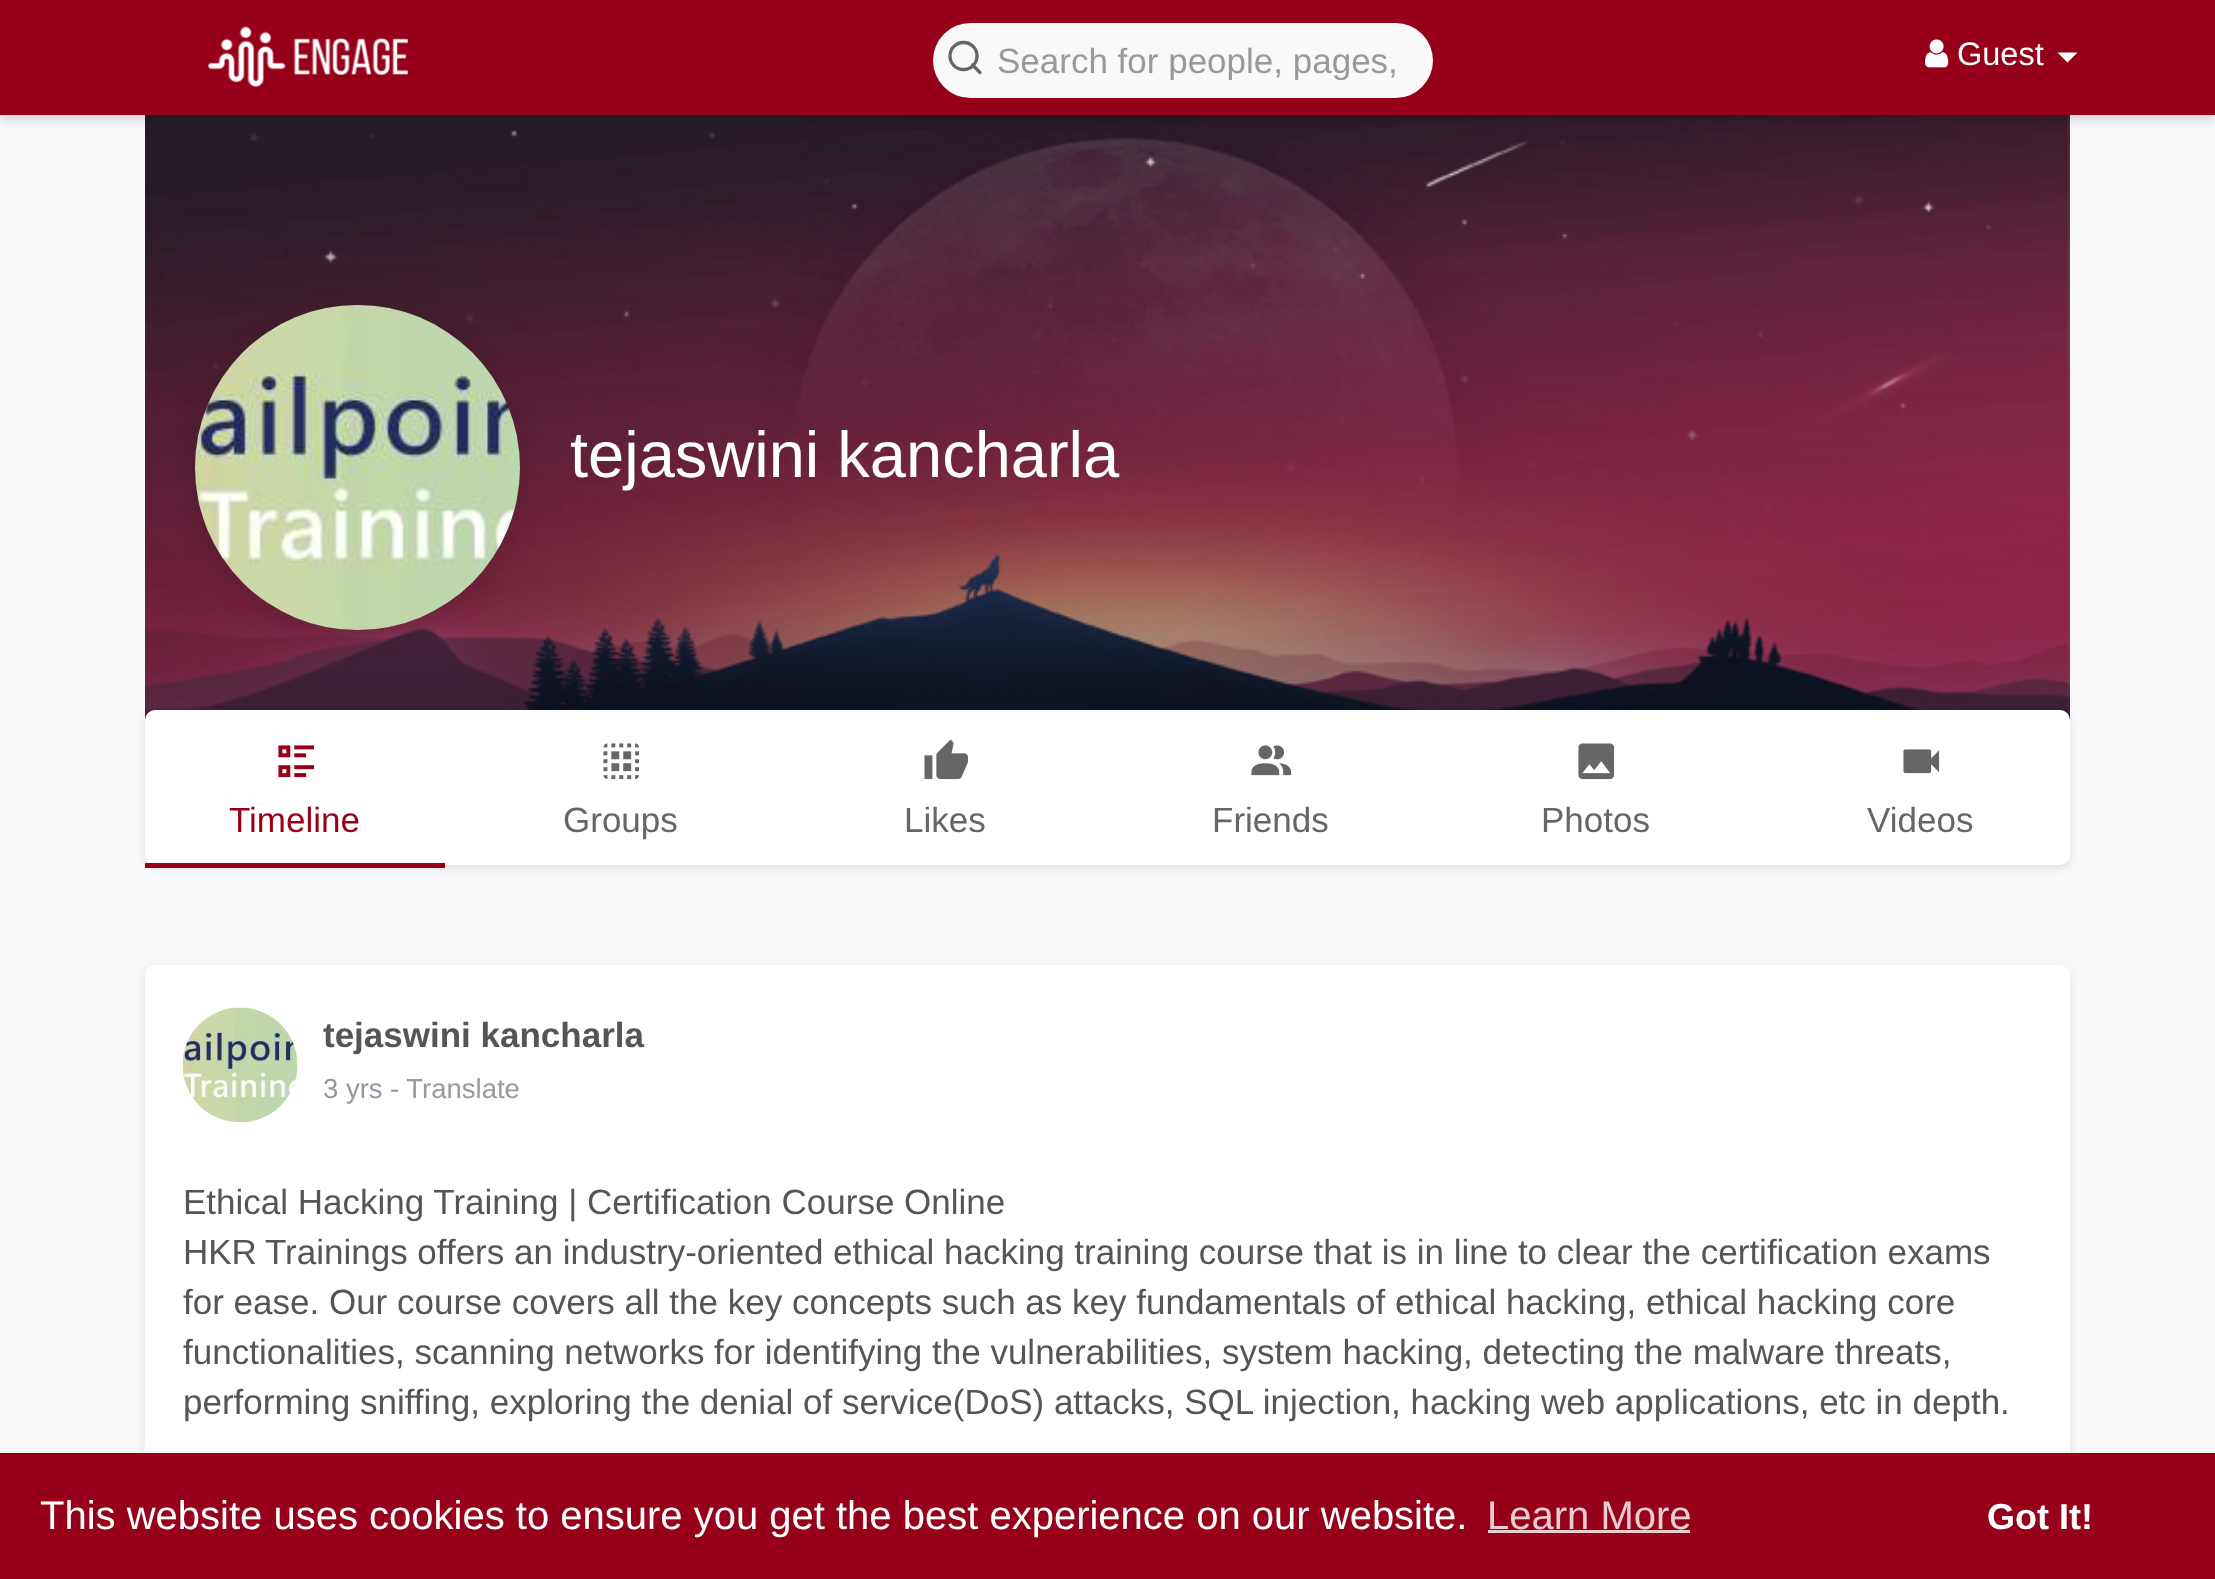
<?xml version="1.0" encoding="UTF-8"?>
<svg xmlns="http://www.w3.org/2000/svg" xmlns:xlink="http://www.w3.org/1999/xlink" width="2215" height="1579">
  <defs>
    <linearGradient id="g1" gradientUnits="userSpaceOnUse" x1="1108" y1="242" x2="1108" y2="743"><stop offset="0" stop-color="#000000" stop-opacity="0" /><stop offset="1" stop-color="#000000" stop-opacity="0.45" /></linearGradient>
    <clipPath id="clip1"><rect x="998" y="40" width="402" height="40" /></clipPath>
  </defs>
  <rect width="100%" height="100%" fill="#f9f9f9" />
  <image x="145" y="115" width="1925" height="605" xlink:href="image3.png" />
  <rect y="5" width="2215" height="115" fill="#000000" fill-opacity="0.15" filter="blur(5px)" />
  <rect width="2215" height="115" fill="#960018" />
  <image x="208" y="26" width="200" height="61" xlink:href="image1.png" />
  <rect x="933" y="23" width="500" height="75" rx="37.5" fill="#f9f9f9" />
  <circle cx="963.5" cy="56" r="13.5" fill="none" stroke="#666666" stroke-width="3.3" />
  <path d="M 980 72.5 l -7.5 -7.5" fill="none" stroke="#666666" stroke-width="3.3" stroke-linecap="round" stroke-linejoin="round" />
  <image x="1925" y="39" width="24" height="29" xlink:href="image2.png" />
  <path d="M 2057.5 52.5 h 20 l -10 10 z" fill="#ffffff" />
  <rect x="145" y="266" width="1925" height="454" fill="url(#g1)" />
  <rect x="195" y="310" width="325" height="325" rx="162.5" fill="#000000" fill-opacity="0.15" filter="blur(12.5px)" />
  <image x="195" y="305" width="325" height="325" xlink:href="image4.png" />
  <rect x="145" y="713" width="1925" height="155" rx="10" fill="#000000" fill-opacity="0.1" filter="blur(4px)" />
  <rect x="145" y="710" width="1925" height="155" rx="10" fill="#ffffff" />
  <rect x="145" y="863" width="300" height="5" fill="#960018" />
  <image x="278" y="745" width="37" height="33" xlink:href="image5.png" />
  <image x="603" y="743" width="37" height="37" xlink:href="image6.png" />
  <image x="924" y="739" width="44" height="41" xlink:href="image7.png" />
  <image x="1251" y="745" width="41" height="31" xlink:href="image8.png" />
  <image x="1578" y="743" width="37" height="37" xlink:href="image9.png" />
  <image x="1903" y="749" width="37" height="25" xlink:href="image10.png" />
  <rect x="145" y="968" width="1925" height="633" rx="10" fill="#000000" fill-opacity="0.1" filter="blur(4px)" />
  <rect x="145" y="965" width="1925" height="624" rx="10" fill="#ffffff" />
  <image x="182" y="1007" width="116" height="116" xlink:href="image11.png" />
  <rect y="1453" width="2215" height="126" fill="#960018" />
  <rect x="1488" y="1530" width="202" height="3" fill="#eaccd1" />
  <g clip-path="url(#clip1)">
    <text x="997" y="73" style="font-family: Liberation Sans; font-size: 35px; fill: #999999">Search for people, pages,</text>
  </g>
  <text x="1957" y="65" style="font-family: Liberation Sans; font-size: 32.5px; fill: #ffffff">Guest</text>
  <text x="570" y="477" style="font-family: Liberation Sans; font-size: 65px; fill: #ffffff">tejaswini kancharla</text>
  <text x="229" y="832" style="font-family: Liberation Sans; font-size: 35px; fill: #960018">Timeline</text>
  <text x="563" y="832" style="font-family: Liberation Sans; font-size: 35px; fill: #666666">Groups</text>
  <text x="904" y="832" style="font-family: Liberation Sans; font-size: 35px; fill: #666666">Likes</text>
  <text x="1212" y="832" style="font-family: Liberation Sans; font-size: 35px; fill: #666666">Friends</text>
  <text x="1541" y="832" style="font-family: Liberation Sans; font-size: 35px; fill: #666666">Photos</text>
  <text x="1867" y="832" style="font-family: Liberation Sans; font-size: 35px; fill: #666666">Videos</text>
  <text x="323" y="1047" style="font-family: Liberation Sans; font-size: 35px; font-weight: bold; fill: #555555">tejaswini kancharla</text>
  <text x="323" y="1098" style="font-family: Liberation Sans; font-size: 27.5px; fill: #9197a3">3 yrs</text>
  <text x="390" y="1098" style="font-family: Liberation Sans; font-size: 27.5px; fill: #999999">- Translate</text>
  <text x="183" y="1214" style="font-family: Liberation Sans; font-size: 35px; fill: #555555">Ethical Hacking Training | Certification Course Online</text>
  <text x="183" y="1264" style="font-family: Liberation Sans; font-size: 35px; fill: #555555">HKR</text>
  <text x="265" y="1264" style="font-family: Liberation Sans; font-size: 35px; fill: #555555">Trainings offers an industry-oriented ethical hacking training course that is in line to clear the certification exams</text>
  <text x="183" y="1314" style="font-family: Liberation Sans; font-size: 35px; fill: #555555">for ease. Our course covers all the key concepts such as key fundamentals of ethical hacking, ethical hacking core</text>
  <text x="183" y="1364" style="font-family: Liberation Sans; font-size: 35px; fill: #555555">functionalities, scanning networks for identifying the vulnerabilities, system hacking, detecting the malware threats,</text>
  <text x="183" y="1414" style="font-family: Liberation Sans; font-size: 35px; fill: #555555">performing sniffing, exploring the denial of service(DoS) attacks, SQL injection, hacking web applications, etc in depth.</text>
  <text x="40" y="1529" style="font-family: Liberation Sans; font-size: 40px; fill: #ffffff">This website uses cookies to ensure you get the best experience on our website.</text>
  <text x="1487" y="1529" style="font-family: Liberation Sans; font-size: 40px; fill: #eaccd1">Learn More</text>
  <text x="1987" y="1529" style="font-family: Liberation Sans; font-size: 36px; font-weight: bold; fill: #ffffff">Got It!</text>
</svg>
